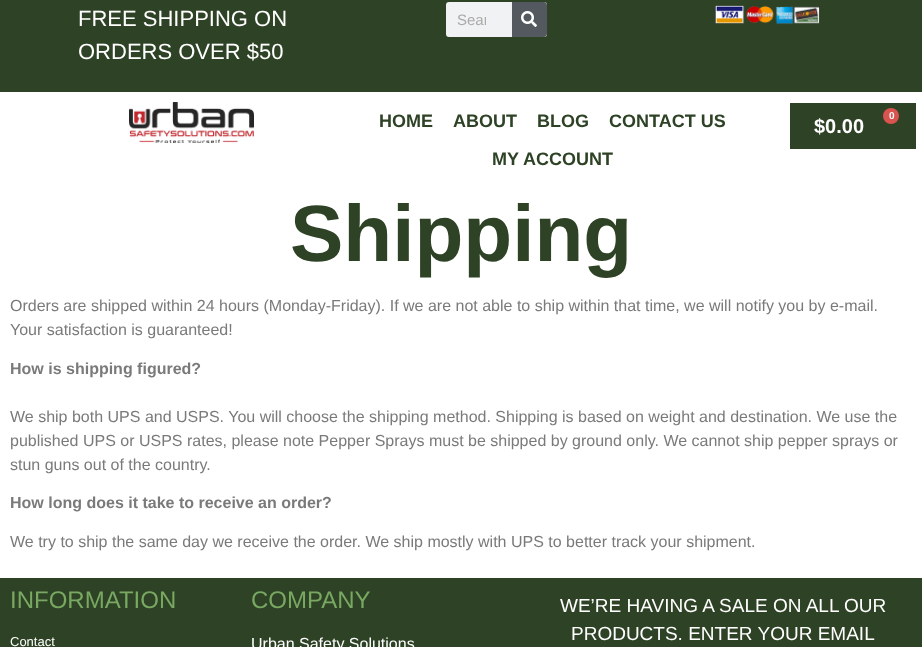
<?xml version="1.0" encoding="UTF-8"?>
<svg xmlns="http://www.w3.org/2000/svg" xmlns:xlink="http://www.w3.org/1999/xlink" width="922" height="647">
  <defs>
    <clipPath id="clip1"><rect x="457" y="11" width="29" height="17" /></clipPath>
  </defs>
  <rect width="100%" height="100%" fill="#ffffff" />
  <rect width="922" height="92" fill="#2e4225" />
  <rect x="446" y="2" width="101" height="35" rx="3" fill="#f1f2f3" />
  <path d="M 512 2 h 32 c 1.5 0 3 1.5 3 3 v 29 c 0 1.5 -1.5 3 -3 3 h -32 z" fill="#54595f" />
  <image x="521" y="11" width="16" height="16" xlink:href="image1.png" />
  <image x="715" y="5" width="105" height="20" xlink:href="image2.png" />
  <image x="129" y="102" width="125" height="41" xlink:href="image3.png" />
  <rect x="790" y="103" width="126" height="46" fill="#2e4225" />
  <circle cx="891" cy="116" r="8" fill="#d9534f" />
  <rect y="578" width="922" height="69" fill="#2e4225" />
  <text x="78" y="26" style="font-family: Liberation Sans; font-size: 22px; fill: #ffffff">FREE SHIPPING ON</text>
  <text x="78" y="59" style="font-family: Liberation Sans; font-size: 22px; fill: #ffffff">ORDERS OVER $50</text>
  <g clip-path="url(#clip1)">
    <text x="457" y="25" style="font-family: Liberation Sans; font-size: 15px; fill: #aaaaaa">Sear</text>
  </g>
  <text x="379" y="127" style="font-family: Liberation Sans; font-size: 18px; font-weight: bold; fill: #2e4225">HOME</text>
  <text x="453" y="127" style="font-family: Liberation Sans; font-size: 18px; font-weight: bold; fill: #2e4225">ABOUT</text>
  <text x="537" y="127" style="font-family: Liberation Sans; font-size: 18px; font-weight: bold; fill: #2e4225">BLOG</text>
  <text x="609" y="127" style="font-family: Liberation Sans; font-size: 18px; font-weight: bold; fill: #2e4225">CONTACT US</text>
  <text x="492" y="165" style="font-family: Liberation Sans; font-size: 18px; font-weight: bold; fill: #2e4225">MY ACCOUNT</text>
  <text x="889" y="119" style="font-family: Liberation Sans; font-size: 10px; font-weight: bold; fill: #ffffff">0</text>
  <text x="814" y="133" style="font-family: Liberation Sans; font-size: 20px; font-weight: bold; fill: #ffffff">$0.00</text>
  <text x="290" y="261" style="font-family: Liberation Sans; font-size: 80px; font-weight: bold; fill: #2e4225">Shipping</text>
  <text x="10" y="311" style="font-family: Liberation Sans; font-size: 16px; fill: #7a7a7a">Orders are shipped within 24 hours (Monday-Friday). If we are not able to ship within that time, we will notify you by e-mail.</text>
  <text x="10" y="335" style="font-family: Liberation Sans; font-size: 16px; fill: #7a7a7a">Your satisfaction is guaranteed!</text>
  <text x="10" y="374" style="font-family: Liberation Sans; font-size: 16px; font-weight: bold; fill: #7a7a7a">How is shipping figured?</text>
  <text x="10" y="422" style="font-family: Liberation Sans; font-size: 16px; fill: #7a7a7a">We ship both UPS and USPS. You will choose the shipping method. Shipping is based on weight and destination. We use the</text>
  <text x="10" y="446" style="font-family: Liberation Sans; font-size: 16px; fill: #7a7a7a">published UPS or USPS rates, please note Pepper Sprays must be shipped by ground only. We cannot ship pepper sprays or</text>
  <text x="10" y="470" style="font-family: Liberation Sans; font-size: 16px; fill: #7a7a7a">stun guns out of the country.</text>
  <text x="10" y="508" style="font-family: Liberation Sans; font-size: 16px; font-weight: bold; fill: #7a7a7a">How long does it take to receive an order?</text>
  <text x="10" y="547" style="font-family: Liberation Sans; font-size: 16px; fill: #7a7a7a">We try to ship the same day we receive the order. We ship mostly with UPS to better track your shipment.</text>
  <text x="10" y="608" style="font-family: Liberation Sans; font-size: 24px; fill: #78a862">INFORMATION</text>
  <text x="10" y="646" style="font-family: Liberation Sans; font-size: 13px; fill: #ffffff">Contact</text>
  <text x="251" y="608" style="font-family: Liberation Sans; font-size: 24px; fill: #78a862">COMPANY</text>
  <text x="251" y="649" style="font-family: Liberation Sans; font-size: 16px; fill: #ffffff">Urban Safety Solutions</text>
  <text x="560" y="612" style="font-family: Liberation Sans; font-size: 19px; fill: #ffffff">WE’RE HAVING A SALE ON ALL OUR</text>
  <text x="571" y="640" style="font-family: Liberation Sans; font-size: 19px; fill: #ffffff">PRODUCTS. ENTER YOUR EMAIL</text>
</svg>
